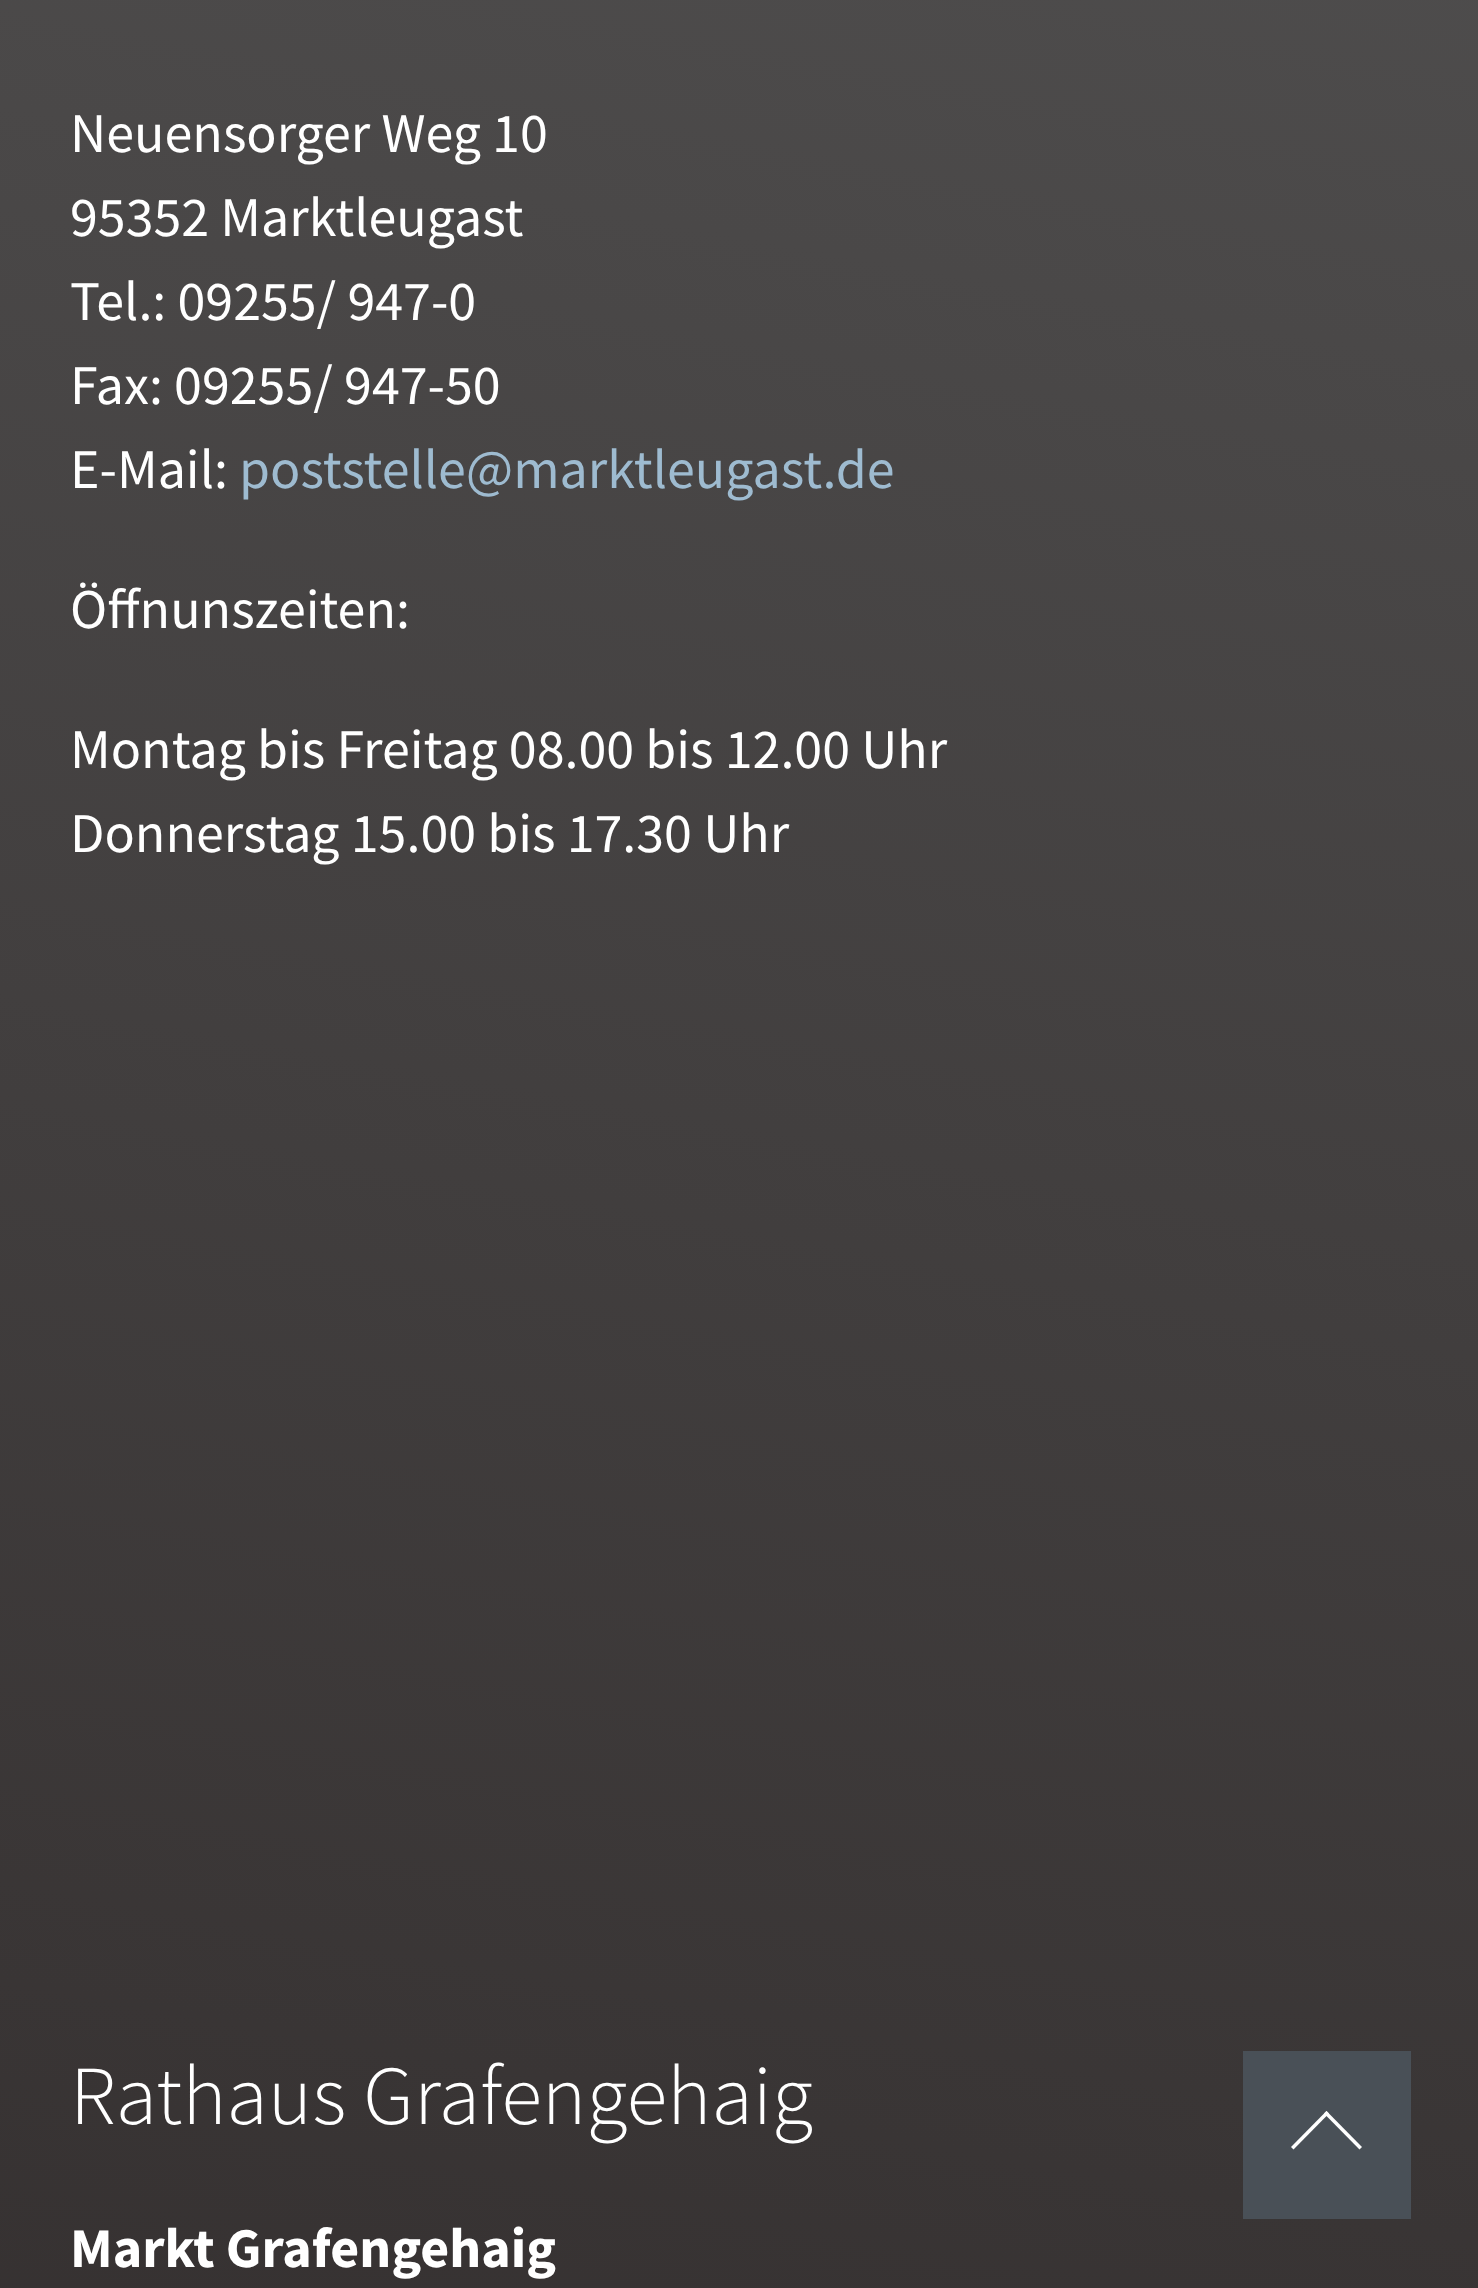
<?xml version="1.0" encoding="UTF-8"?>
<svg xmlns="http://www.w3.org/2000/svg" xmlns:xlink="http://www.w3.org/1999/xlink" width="1478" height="2288">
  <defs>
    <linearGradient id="g1" gradientUnits="userSpaceOnUse" x1="276" y1="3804" x2="1204" y2="-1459"><stop offset="0" stop-color="#292323" /><stop offset="1" stop-color="#5a5a5a" /></linearGradient>
  </defs>
  <rect width="100%" height="100%" fill="#ffffff" />
  <rect width="1478" height="2288" fill="url(#g1)" />
  <rect x="1243" y="2051" width="168" height="168" fill="#495057" />
  <path d="M 1326.5 2111 l 35.5 36 l -2.5 2.5 l -35.5 -36 z" fill="#ffffff" />
  <path d="M 1326.5 2111 l 2.5 2.5 l -35.5 36 l -2.5 -2.5 z" fill="#ffffff" />
  <text x="70" y="152" style="font-family: Source Sans Pro; font-size: 56px; fill: #ffffff">Neuensorger Weg 10</text>
  <text x="70" y="236" style="font-family: Source Sans Pro; font-size: 56px; fill: #ffffff">95352 Marktleugast</text>
  <text x="70" y="320" style="font-family: Source Sans Pro; font-size: 56px; fill: #ffffff">Tel.: 09255/ 947-0</text>
  <text x="70" y="404" style="font-family: Source Sans Pro; font-size: 56px; fill: #ffffff">Fax: 09255/ 947-50</text>
  <text x="70" y="488" style="font-family: Source Sans Pro; font-size: 56px; fill: #ffffff">E-Mail:</text>
  <text x="239" y="488" style="font-family: Source Sans Pro; font-size: 56px; fill: #9ebbd0">poststelle@marktleugast.de</text>
  <text x="70" y="628" style="font-family: Source Sans Pro; font-size: 56px; fill: #ffffff">Öffnunszeiten:</text>
  <text x="70" y="768" style="font-family: Source Sans Pro; font-size: 56px; fill: #ffffff">Montag bis Freitag 08.00 bis 12.00 Uhr</text>
  <text x="70" y="852" style="font-family: Source Sans Pro; font-size: 56px; fill: #ffffff">Donnerstag 15.00 bis 17.30 Uhr</text>
  <text x="70" y="2124" style="font-family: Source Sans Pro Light; font-size: 84px; font-weight: 300; fill: #ffffff">Rathaus Grafengehaig</text>
  <text x="70" y="2267" style="font-family: Source Sans Pro; font-size: 56px; font-weight: bold; fill: #ffffff">Markt Grafengehaig</text>
</svg>
